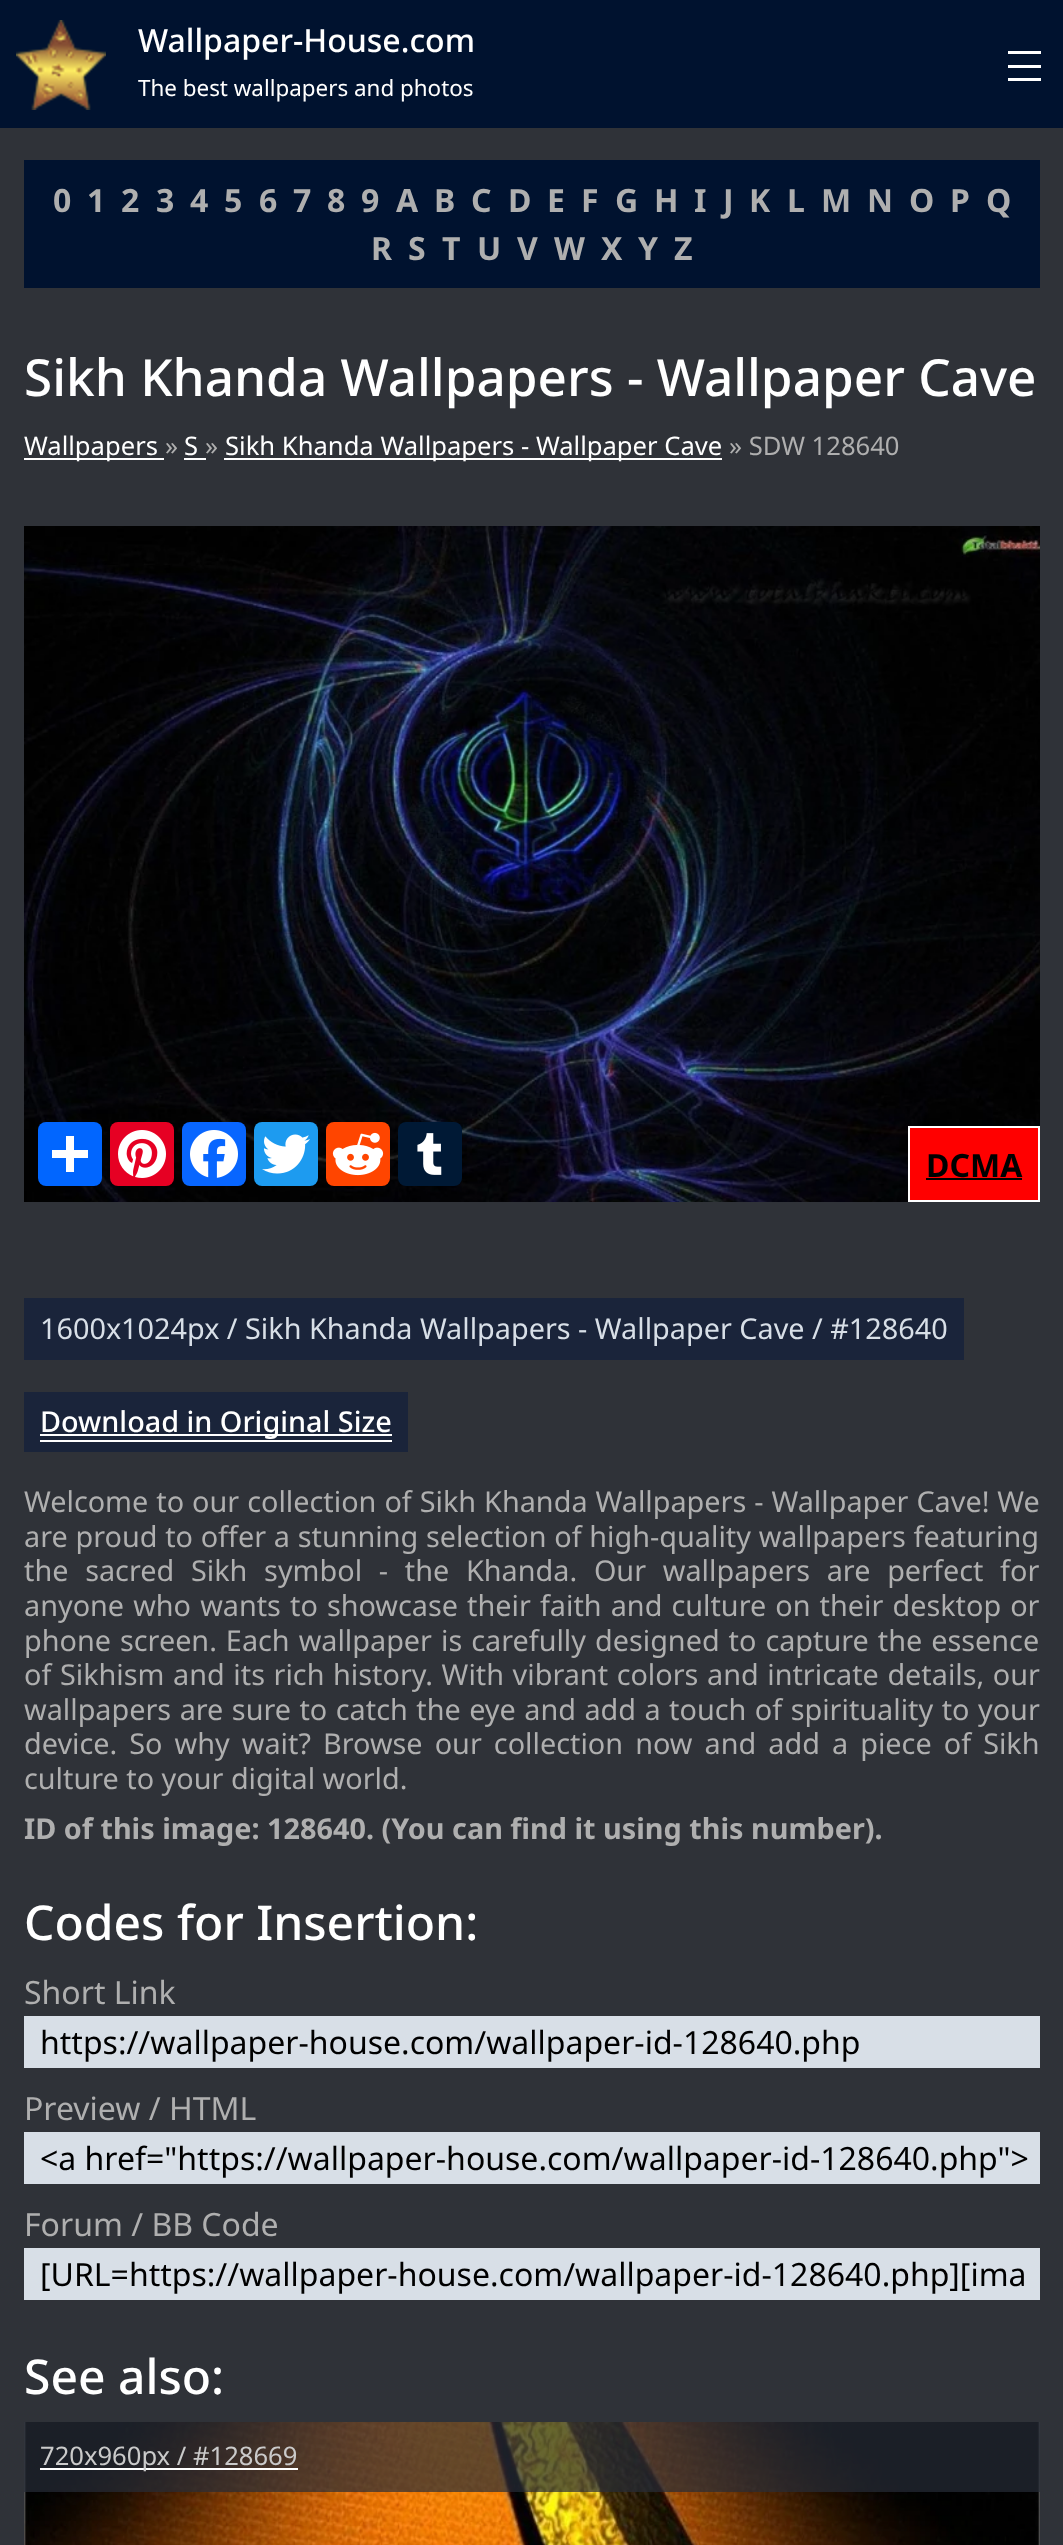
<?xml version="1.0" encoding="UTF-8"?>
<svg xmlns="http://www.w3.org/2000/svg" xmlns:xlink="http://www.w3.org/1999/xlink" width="1063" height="2545">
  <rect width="100%" height="100%" fill="#2f3238" />
  <rect width="1063" height="128" fill="#00122f" />
  <image x="16" y="20" width="90" height="90" xlink:href="image1.png" />
  <rect x="1008" y="51" width="33" height="3" fill="#ffffff" />
  <rect x="1008" y="65" width="33" height="3" fill="#ffffff" />
  <rect x="1008" y="78" width="33" height="3" fill="#ffffff" />
  <rect x="24" y="160" width="1016" height="128" fill="#00122f" />
  <rect x="24" y="458" width="140" height="2" fill="#ffffff" />
  <rect x="184" y="458" width="22" height="2" fill="#ffffff" />
  <rect x="224" y="458" width="498" height="2" fill="#ffffff" />
  <image x="24" y="526" width="1016" height="676" xlink:href="image7.png" />
  <rect x="38" y="1122" width="64" height="64" rx="8" fill="#0166ff" />
  <rect x="66" y="1136" width="8" height="36" fill="#ffffff" />
  <rect x="52" y="1150" width="36" height="8" fill="#ffffff" />
  <rect x="110" y="1122" width="64" height="64" rx="8" fill="#e60023" />
  <image x="118" y="1130" width="48" height="48" xlink:href="image2.png" />
  <rect x="182" y="1122" width="64" height="64" rx="8" fill="#0866ff" />
  <image x="190" y="1130" width="48" height="48" xlink:href="image3.png" />
  <rect x="254" y="1122" width="64" height="64" rx="8" fill="#1d9bf0" />
  <image x="262" y="1134" width="48" height="40" xlink:href="image4.png" />
  <rect x="326" y="1122" width="64" height="64" rx="8" fill="#ff4500" />
  <image x="332" y="1132" width="52" height="44" xlink:href="image5.png" />
  <rect x="398" y="1122" width="64" height="64" rx="8" fill="#001935" />
  <image x="417" y="1133" width="25" height="42" xlink:href="image6.png" />
  <rect x="909" y="1127" width="130" height="74" fill="#ff0000" stroke="#ffffff" stroke-width="2" />
  <rect x="926" y="1178" width="96" height="2" fill="#000000" />
  <rect x="24" y="1298" width="940" height="62" fill="#1a243a" />
  <rect x="24" y="1392" width="384" height="60" fill="#1a243a" />
  <rect x="40" y="1440" width="352" height="2" fill="#ffffff" />
  <rect x="40" y="1434" width="352" height="2" fill="#ffffff" />
  <rect x="24" y="2016" width="1016" height="52" fill="#d8dfe7" />
  <rect x="24" y="2132" width="1016" height="52" fill="#d8dfe7" />
  <rect x="24" y="2248" width="1016" height="52" fill="#d8dfe7" />
  <image x="24" y="2422" width="1016" height="123" xlink:href="image8.png" />
  <rect x="24" y="2422" width="1016" height="70" fill="#272c37" fill-opacity="0.7" />
  <rect x="40" y="2468" width="258" height="2" fill="#ffffff" />
  <text x="138" y="52" style="font-family: Noto Sans; font-size: 32px; font-weight: 500; fill: #ffffff">Wallpaper-House.com</text>
  <text x="138" y="96" style="font-family: Noto Sans; font-size: 22.4px; fill: #ffffff">The best wallpapers and photos</text>
  <text x="53" y="212" style="font-family: Noto Sans; font-size: 32px; font-weight: bold; fill: #afafaf">0</text>
  <text x="87" y="212" style="font-family: Noto Sans; font-size: 32px; font-weight: bold; fill: #afafaf">1</text>
  <text x="121" y="212" style="font-family: Noto Sans; font-size: 32px; font-weight: bold; fill: #afafaf">2</text>
  <text x="156" y="212" style="font-family: Noto Sans; font-size: 32px; font-weight: bold; fill: #afafaf">3</text>
  <text x="190" y="212" style="font-family: Noto Sans; font-size: 32px; font-weight: bold; fill: #afafaf">4</text>
  <text x="224" y="212" style="font-family: Noto Sans; font-size: 32px; font-weight: bold; fill: #afafaf">5</text>
  <text x="259" y="212" style="font-family: Noto Sans; font-size: 32px; font-weight: bold; fill: #afafaf">6</text>
  <text x="293" y="212" style="font-family: Noto Sans; font-size: 32px; font-weight: bold; fill: #afafaf">7</text>
  <text x="327" y="212" style="font-family: Noto Sans; font-size: 32px; font-weight: bold; fill: #afafaf">8</text>
  <text x="361" y="212" style="font-family: Noto Sans; font-size: 32px; font-weight: bold; fill: #afafaf">9</text>
  <text x="396" y="212" style="font-family: Noto Sans; font-size: 32px; font-weight: bold; fill: #afafaf">A</text>
  <text x="434" y="212" style="font-family: Noto Sans; font-size: 32px; font-weight: bold; fill: #afafaf">B</text>
  <text x="471" y="212" style="font-family: Noto Sans; font-size: 32px; font-weight: bold; fill: #afafaf">C</text>
  <text x="508" y="212" style="font-family: Noto Sans; font-size: 32px; font-weight: bold; fill: #afafaf">D</text>
  <text x="547" y="212" style="font-family: Noto Sans; font-size: 32px; font-weight: bold; fill: #afafaf">E</text>
  <text x="581" y="212" style="font-family: Noto Sans; font-size: 32px; font-weight: bold; fill: #afafaf">F</text>
  <text x="615" y="212" style="font-family: Noto Sans; font-size: 32px; font-weight: bold; fill: #afafaf">G</text>
  <text x="654" y="212" style="font-family: Noto Sans; font-size: 32px; font-weight: bold; fill: #afafaf">H</text>
  <text x="694" y="212" style="font-family: Noto Sans; font-size: 32px; font-weight: bold; fill: #afafaf">I</text>
  <text x="723" y="212" style="font-family: Noto Sans; font-size: 32px; font-weight: bold; fill: #afafaf">J</text>
  <text x="749" y="212" style="font-family: Noto Sans; font-size: 32px; font-weight: bold; fill: #afafaf">K</text>
  <text x="787" y="212" style="font-family: Noto Sans; font-size: 32px; font-weight: bold; fill: #afafaf">L</text>
  <text x="821" y="212" style="font-family: Noto Sans; font-size: 32px; font-weight: bold; fill: #afafaf">M</text>
  <text x="867" y="212" style="font-family: Noto Sans; font-size: 32px; font-weight: bold; fill: #afafaf">N</text>
  <text x="909" y="212" style="font-family: Noto Sans; font-size: 32px; font-weight: bold; fill: #afafaf">O</text>
  <text x="950" y="212" style="font-family: Noto Sans; font-size: 32px; font-weight: bold; fill: #afafaf">P</text>
  <text x="986" y="212" style="font-family: Noto Sans; font-size: 32px; font-weight: bold; fill: #afafaf">Q</text>
  <text x="371" y="260" style="font-family: Noto Sans; font-size: 32px; font-weight: bold; fill: #afafaf">R</text>
  <text x="408" y="260" style="font-family: Noto Sans; font-size: 32px; font-weight: bold; fill: #afafaf">S</text>
  <text x="442" y="260" style="font-family: Noto Sans; font-size: 32px; font-weight: bold; fill: #afafaf">T</text>
  <text x="477" y="260" style="font-family: Noto Sans; font-size: 32px; font-weight: bold; fill: #afafaf">U</text>
  <text x="517" y="260" style="font-family: Noto Sans; font-size: 32px; font-weight: bold; fill: #afafaf">V</text>
  <text x="554" y="260" style="font-family: Noto Sans; font-size: 32px; font-weight: bold; fill: #afafaf">W</text>
  <text x="601" y="260" style="font-family: Noto Sans; font-size: 32px; font-weight: bold; fill: #afafaf">X</text>
  <text x="638" y="260" style="font-family: Noto Sans; font-size: 32px; font-weight: bold; fill: #afafaf">Y</text>
  <text x="674" y="260" style="font-family: Noto Sans; font-size: 32px; font-weight: bold; fill: #afafaf">Z</text>
  <text x="24" y="396" style="font-family: Noto Sans; font-size: 51.25px; font-weight: 500; fill: #ffffff">Sikh Khanda Wallpapers - Wallpaper Cave</text>
  <text x="24" y="455" style="font-family: Noto Sans; font-size: 25.6px; fill: #ffffff">Wallpapers</text>
  <text x="165" y="455" style="font-family: Noto Sans; font-size: 25.6px; fill: #afafaf">»</text>
  <text x="184" y="455" style="font-family: Noto Sans; font-size: 25.6px; fill: #ffffff">S</text>
  <text x="205" y="455" style="font-family: Noto Sans; font-size: 25.6px; fill: #afafaf">»</text>
  <text x="225" y="455" style="font-family: Noto Sans; font-size: 25.6px; fill: #ffffff">Sikh Khanda Wallpapers - Wallpaper Cave</text>
  <text x="729" y="455" style="font-family: Noto Sans; font-size: 25.6px; fill: #afafaf">» SDW 128640</text>
  <text x="926" y="1177" style="font-family: Noto Sans; font-size: 32px; font-weight: bold; fill: #000000">DCMA</text>
  <text x="40" y="1339" style="font-family: Noto Sans; font-size: 28.8px; fill: #d8dfe7">1600x1024px / Sikh Khanda Wallpapers - Wallpaper Cave</text>
  <text x="812" y="1339" style="font-family: Noto Sans; font-size: 28.8px; fill: #d8dfe7">/ #128640</text>
  <text x="40" y="1432" style="font-family: Noto Sans; font-size: 28.8px; font-weight: 500; fill: #ffffff">Download in Original Size</text>
  <text x="24" y="1512" word-spacing="0.5" style="font-family: Noto Sans; font-size: 28.8px; fill: #afafaf">Welcome to our collection of Sikh Khanda Wallpapers - Wallpaper Cave! We</text>
  <text x="24" y="1547" word-spacing="0.25" style="font-family: Noto Sans; font-size: 28.8px; fill: #afafaf">are proud to offer a stunning selection of high-quality wallpapers featuring</text>
  <text x="24" y="1581" word-spacing="9.25" style="font-family: Noto Sans; font-size: 28.8px; fill: #afafaf">the sacred Sikh symbol - the Khanda. Our wallpapers are perfect for</text>
  <text x="24" y="1616" word-spacing="1.6" style="font-family: Noto Sans; font-size: 28.8px; fill: #afafaf">anyone who wants to showcase their faith and culture on their desktop or</text>
  <text x="24" y="1651" word-spacing="1.5" style="font-family: Noto Sans; font-size: 28.8px; fill: #afafaf">phone screen. Each wallpaper is carefully designed to capture the essence</text>
  <text x="24" y="1685" word-spacing="1.1" style="font-family: Noto Sans; font-size: 28.8px; fill: #afafaf">of Sikhism and its rich history. With vibrant colors and intricate details, our</text>
  <text x="24" y="1720" word-spacing="1" style="font-family: Noto Sans; font-size: 28.8px; fill: #afafaf">wallpapers are sure to catch the eye and add a touch of spirituality to your</text>
  <text x="24" y="1754" word-spacing="4.6" style="font-family: Noto Sans; font-size: 28.8px; fill: #afafaf">device. So why wait? Browse our collection now and add a piece of Sikh</text>
  <text x="24" y="1789" style="font-family: Noto Sans; font-size: 28.8px; fill: #afafaf">culture to your digital world.</text>
  <text x="24" y="1839" style="font-family: Noto Sans; font-size: 28.8px; font-weight: bold; fill: #afafaf">ID of this image: 128640. (You can find it using this number).</text>
  <text x="24" y="1940" style="font-family: Noto Sans; font-size: 48px; font-weight: 500; fill: #ffffff">Codes for Insertion:</text>
  <text x="24" y="2004" style="font-family: Noto Sans; font-size: 32px; fill: #afafaf">Short Link</text>
  <text x="40" y="2054" style="font-family: Noto Sans; font-size: 32px; fill: #000000">https://wallpaper-house.com/wallpaper-id-128640.php</text>
  <text x="24" y="2120" style="font-family: Noto Sans; font-size: 32px; fill: #afafaf">Preview / HTML</text>
  <text x="40" y="2170" style="font-family: Noto Sans; font-size: 32px; fill: #000000">&lt;a href="https://wallpaper-house.com/wallpaper-id-128640.php"&gt;</text>
  <text x="24" y="2236" style="font-family: Noto Sans; font-size: 32px; fill: #afafaf">Forum / BB Code</text>
  <text x="40" y="2286" style="font-family: Noto Sans; font-size: 32px; fill: #000000">[URL=https://wallpaper-house.com/wallpaper-id-128640.php][ima</text>
  <text x="24" y="2394" style="font-family: Noto Sans; font-size: 48px; font-weight: 500; fill: #ffffff">See also:</text>
  <text x="40" y="2465" style="font-family: Noto Sans; font-size: 25.6px; fill: #cacaca">720x960px / #128669</text>
</svg>
